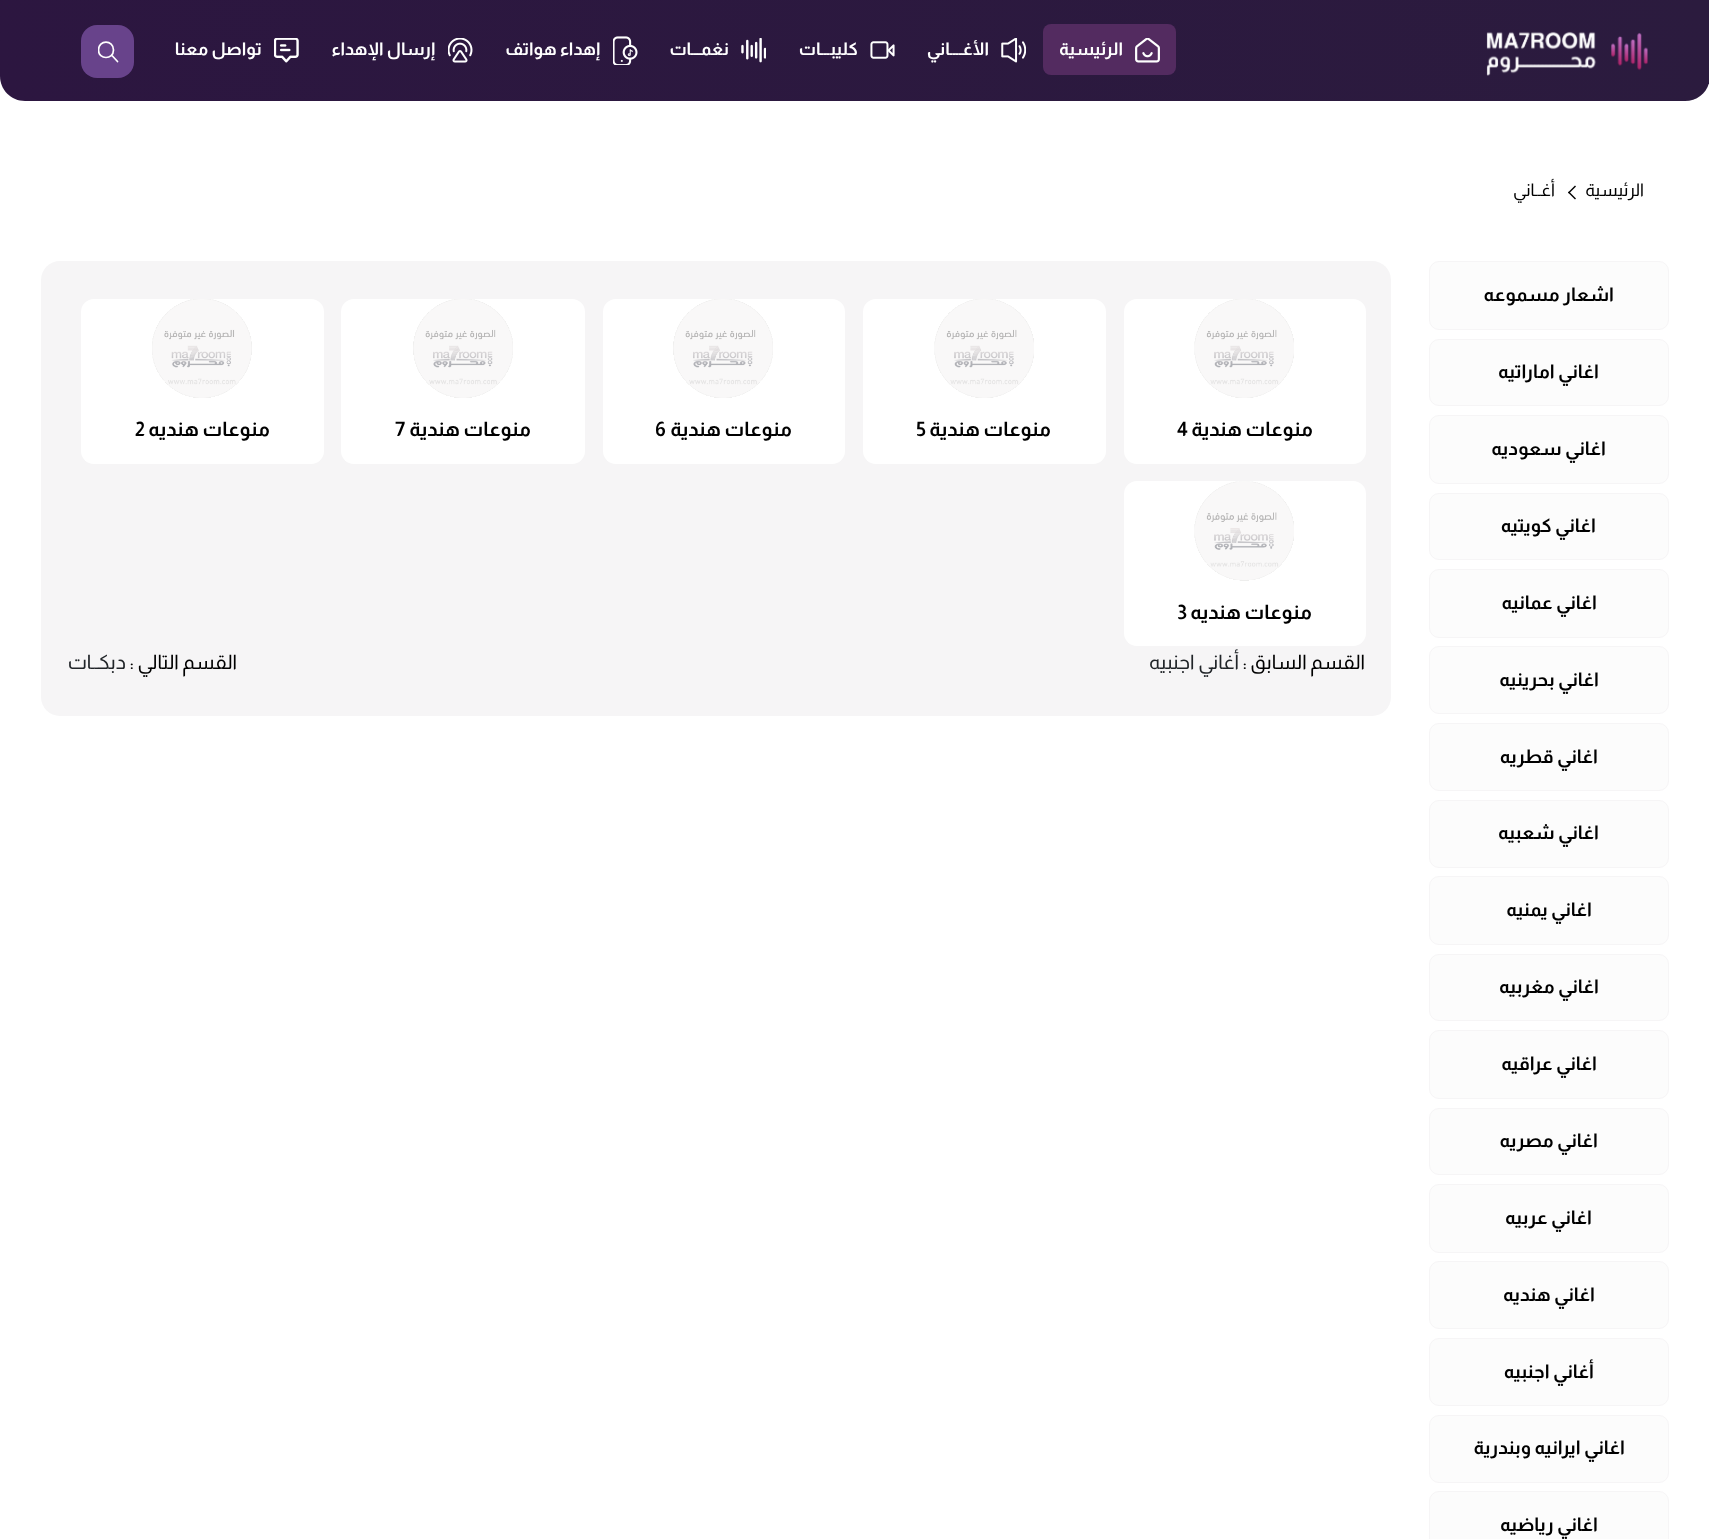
<?xml version="1.0" encoding="UTF-8"?>
<svg xmlns="http://www.w3.org/2000/svg" xmlns:xlink="http://www.w3.org/1999/xlink" width="1709" height="1539">
  <defs>
    <linearGradient id="g1" gradientUnits="userSpaceOnUse" x1="1678" y1="-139" x2="32" y2="241"><stop offset="0" stop-color="#2b1b3e" /><stop offset="1" stop-color="#2c1640" /></linearGradient>
    <clipPath id="clip1"><rect x="98" y="41" width="21" height="22" /></clipPath>
  </defs>
  <rect width="100%" height="100%" fill="#ffffff" />
  <path d="M 0 0 h 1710 v 76 c 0 14 -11 25 -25 25 h -1660 c -14 0 -25 -11 -25 -25 z" fill="url(#g1)" />
  <image x="1486" y="31" width="162" height="45" xlink:href="image1.png" />
  <rect x="1043" y="24" width="133" height="51" rx="8" fill="#532b60" />
  <image x="1135" y="38" width="25" height="25" xlink:href="image2.png" />
  <image x="1001" y="38" width="25" height="25" xlink:href="image3.png" />
  <image x="870" y="41" width="25" height="18" xlink:href="image4.png" />
  <image x="741" y="38" width="25" height="25" xlink:href="image5.png" />
  <image x="613" y="36" width="25" height="29" xlink:href="image6.png" />
  <image x="448" y="38" width="25" height="25" xlink:href="image7.png" />
  <image x="274" y="38" width="25" height="25" xlink:href="image8.png" />
  <rect x="81" y="25" width="53" height="53" rx="16" fill="#68438b" />
  <g clip-path="url(#clip1)">
    <path d="M 112 55.5 l 5.5 6 m -4 -11.5 c 0 10 -15 10 -15 0 c 0 -10.5 15 -10.5 15 0 z" fill="none" stroke="#ffffff" stroke-width="1.7" stroke-linecap="round" stroke-linejoin="round" />
  </g>
  <path d="M 1569 191.5 l 7 7 l -1 1 l -7 -7 z" fill="#000000" />
  <path d="M 1575 185.5 l 1 1 l -7 7 l -1 -1 z" fill="#000000" />
  <rect x="1429.5" y="261.5" width="239" height="68" rx="9.5" fill="#fcfcfc" stroke="#f6f5f6" />
  <rect x="1429.5" y="339.5" width="239" height="66" rx="9.5" fill="#fcfcfc" stroke="#f6f5f6" />
  <rect x="1429.5" y="415.5" width="239" height="68" rx="9.5" fill="#fcfcfc" stroke="#f6f5f6" />
  <rect x="1429.5" y="493.5" width="239" height="66" rx="9.5" fill="#fcfcfc" stroke="#f6f5f6" />
  <rect x="1429.5" y="569.5" width="239" height="68" rx="9.5" fill="#fcfcfc" stroke="#f6f5f6" />
  <rect x="1429.5" y="646.5" width="239" height="67" rx="9.5" fill="#fcfcfc" stroke="#f6f5f6" />
  <rect x="1429.5" y="723.5" width="239" height="67" rx="9.5" fill="#fcfcfc" stroke="#f6f5f6" />
  <rect x="1429.5" y="800.5" width="239" height="67" rx="9.5" fill="#fcfcfc" stroke="#f6f5f6" />
  <rect x="1429.5" y="876.5" width="239" height="68" rx="9.5" fill="#fcfcfc" stroke="#f6f5f6" />
  <rect x="1429.5" y="954.5" width="239" height="66" rx="9.5" fill="#fcfcfc" stroke="#f6f5f6" />
  <rect x="1429.5" y="1030.5" width="239" height="68" rx="9.5" fill="#fcfcfc" stroke="#f6f5f6" />
  <rect x="1429.5" y="1108.5" width="239" height="66" rx="9.5" fill="#fcfcfc" stroke="#f6f5f6" />
  <rect x="1429.5" y="1184.5" width="239" height="68" rx="9.5" fill="#fcfcfc" stroke="#f6f5f6" />
  <rect x="1429.5" y="1261.5" width="239" height="67" rx="9.5" fill="#fcfcfc" stroke="#f6f5f6" />
  <rect x="1429.5" y="1338.5" width="239" height="67" rx="9.5" fill="#fcfcfc" stroke="#f6f5f6" />
  <rect x="1429.5" y="1415.5" width="239" height="67" rx="9.5" fill="#fcfcfc" stroke="#f6f5f6" />
  <rect x="1429.5" y="1491.5" width="239" height="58" rx="9.5" fill="#fcfcfc" stroke="#f6f5f6" />
  <rect x="41" y="261" width="1350" height="455" rx="19" fill="#f6f5f6" />
  <rect x="1124" y="299" width="242" height="165" rx="13" fill="#ffffff" />
  <image x="1194" y="299" width="100" height="99" xlink:href="image9.png" />
  <rect x="863" y="299" width="243" height="165" rx="13" fill="#ffffff" />
  <image x="934" y="299" width="100" height="99" xlink:href="image10.png" />
  <rect x="603" y="299" width="242" height="165" rx="13" fill="#ffffff" />
  <image x="673" y="299" width="100" height="99" xlink:href="image11.png" />
  <rect x="341" y="299" width="244" height="165" rx="13" fill="#ffffff" />
  <image x="413" y="299" width="100" height="99" xlink:href="image12.png" />
  <rect x="81" y="299" width="243" height="165" rx="13" fill="#ffffff" />
  <image x="152" y="299" width="100" height="99" xlink:href="image13.png" />
  <rect x="1124" y="481" width="242" height="165" rx="13" fill="#ffffff" />
  <image x="1194" y="481" width="100" height="100" xlink:href="image14.png" />
  <text x="1123" y="55" style="font-family: Almarai; font-size: 17.5px; font-weight: bold; direction: rtl; fill: #ffffff">الرئيسية</text>
  <text x="989" y="55" style="font-family: Almarai; font-size: 17.5px; font-weight: bold; direction: rtl; fill: #ffffff">الأغــــاني</text>
  <text x="858" y="55" style="font-family: Almarai; font-size: 17.5px; font-weight: bold; direction: rtl; fill: #ffffff">كليبـــات</text>
  <text x="729" y="55" style="font-family: Almarai; font-size: 17.5px; font-weight: bold; direction: rtl; fill: #ffffff">نغمـــات</text>
  <text x="600" y="55" style="font-family: Almarai; font-size: 17.5px; font-weight: bold; direction: rtl; fill: #ffffff">إهداء هواتف</text>
  <text x="435" y="55" style="font-family: Almarai; font-size: 17.5px; font-weight: bold; direction: rtl; fill: #ffffff">إرسال الإهداء</text>
  <text x="262" y="55" style="font-family: Almarai; font-size: 17.5px; font-weight: bold; direction: rtl; fill: #ffffff">تواصل معنا</text>
  <text x="1644" y="196" style="font-family: Almarai; font-size: 17.5px; direction: rtl; fill: #000000">الرئيسية</text>
  <text x="1555" y="196" style="font-family: Almarai; font-size: 17.5px; direction: rtl; fill: #000000">أغــاني</text>
  <text x="1614" y="301" style="font-family: Almarai; font-size: 18.75px; font-weight: bold; direction: rtl; fill: #000000">اشعار مسموعه</text>
  <text x="1599" y="378" style="font-family: Almarai; font-size: 18.75px; font-weight: bold; direction: rtl; fill: #000000">اغاني اماراتيه</text>
  <text x="1606" y="455" style="font-family: Almarai; font-size: 18.75px; font-weight: bold; direction: rtl; fill: #000000">اغاني سعوديه</text>
  <text x="1596" y="532" style="font-family: Almarai; font-size: 18.75px; font-weight: bold; direction: rtl; fill: #000000">اغاني كويتيه</text>
  <text x="1597" y="609" style="font-family: Almarai; font-size: 18.75px; font-weight: bold; direction: rtl; fill: #000000">اغاني عمانيه</text>
  <text x="1599" y="686" style="font-family: Almarai; font-size: 18.75px; font-weight: bold; direction: rtl; fill: #000000">اغاني بحرينيه</text>
  <text x="1598" y="763" style="font-family: Almarai; font-size: 18.75px; font-weight: bold; direction: rtl; fill: #000000">اغاني قطريه</text>
  <text x="1599" y="839" style="font-family: Almarai; font-size: 18.75px; font-weight: bold; direction: rtl; fill: #000000">اغاني شعبيه</text>
  <text x="1592" y="916" style="font-family: Almarai; font-size: 18.75px; font-weight: bold; direction: rtl; fill: #000000">اغاني يمنيه</text>
  <text x="1599" y="993" style="font-family: Almarai; font-size: 18.75px; font-weight: bold; direction: rtl; fill: #000000">اغاني مغربيه</text>
  <text x="1597" y="1070" style="font-family: Almarai; font-size: 18.75px; font-weight: bold; direction: rtl; fill: #000000">اغاني عراقيه</text>
  <text x="1598" y="1147" style="font-family: Almarai; font-size: 18.75px; font-weight: bold; direction: rtl; fill: #000000">اغاني مصريه</text>
  <text x="1592" y="1224" style="font-family: Almarai; font-size: 18.75px; font-weight: bold; direction: rtl; fill: #000000">اغاني عربيه</text>
  <text x="1595" y="1301" style="font-family: Almarai; font-size: 18.75px; font-weight: bold; direction: rtl; fill: #000000">اغاني هنديه</text>
  <text x="1594" y="1378" style="font-family: Almarai; font-size: 18.75px; font-weight: bold; direction: rtl; fill: #000000">أغاني اجنبيه</text>
  <text x="1625" y="1454" style="font-family: Almarai; font-size: 18.75px; font-weight: bold; direction: rtl; fill: #000000">اغاني ايرانيه وبندرية</text>
  <text x="1598" y="1531" style="font-family: Almarai; font-size: 18.75px; font-weight: bold; direction: rtl; fill: #000000">اغاني رياضيه</text>
  <text x="1313" y="436" style="font-family: Almarai; font-size: 20px; font-weight: bold; direction: rtl; fill: #000000">منوعات هندية</text>
  <text x="1177" y="436" style="font-family: Almarai; font-size: 20px; font-weight: bold; fill: #000000">4</text>
  <text x="1051" y="436" style="font-family: Almarai; font-size: 20px; font-weight: bold; direction: rtl; fill: #000000">منوعات هندية</text>
  <text x="917" y="436" style="font-family: Almarai; font-size: 20px; font-weight: bold; fill: #000000">5</text>
  <text x="792" y="436" style="font-family: Almarai; font-size: 20px; font-weight: bold; direction: rtl; fill: #000000">منوعات هندية</text>
  <text x="655" y="436" style="font-family: Almarai; font-size: 20px; font-weight: bold; fill: #000000">6</text>
  <text x="531" y="436" style="font-family: Almarai; font-size: 20px; font-weight: bold; direction: rtl; fill: #000000">منوعات هندية</text>
  <text x="395" y="436" style="font-family: Almarai; font-size: 20px; font-weight: bold; fill: #000000">7</text>
  <text x="270" y="436" style="font-family: Almarai; font-size: 20px; font-weight: bold; direction: rtl; fill: #000000">منوعات هنديه</text>
  <text x="135" y="436" style="font-family: Almarai; font-size: 20px; font-weight: bold; fill: #000000">2</text>
  <text x="1312" y="619" style="font-family: Almarai; font-size: 20px; font-weight: bold; direction: rtl; fill: #000000">منوعات هنديه</text>
  <text x="1177" y="619" style="font-family: Almarai; font-size: 20px; font-weight: bold; fill: #000000">3</text>
  <text x="1365" y="669" style="font-family: Almarai; font-size: 20px; direction: rtl; fill: #000000">القسم السابق :</text>
  <text x="1239" y="669" style="font-family: Almarai; font-size: 20px; direction: rtl; fill: #212529">أغاني اجنبيه</text>
  <text x="237" y="669" style="font-family: Almarai; font-size: 20px; direction: rtl; fill: #000000">القسم التالي :</text>
  <text x="126" y="669" style="font-family: Almarai; font-size: 20px; direction: rtl; fill: #212529">دبكــات</text>
</svg>
